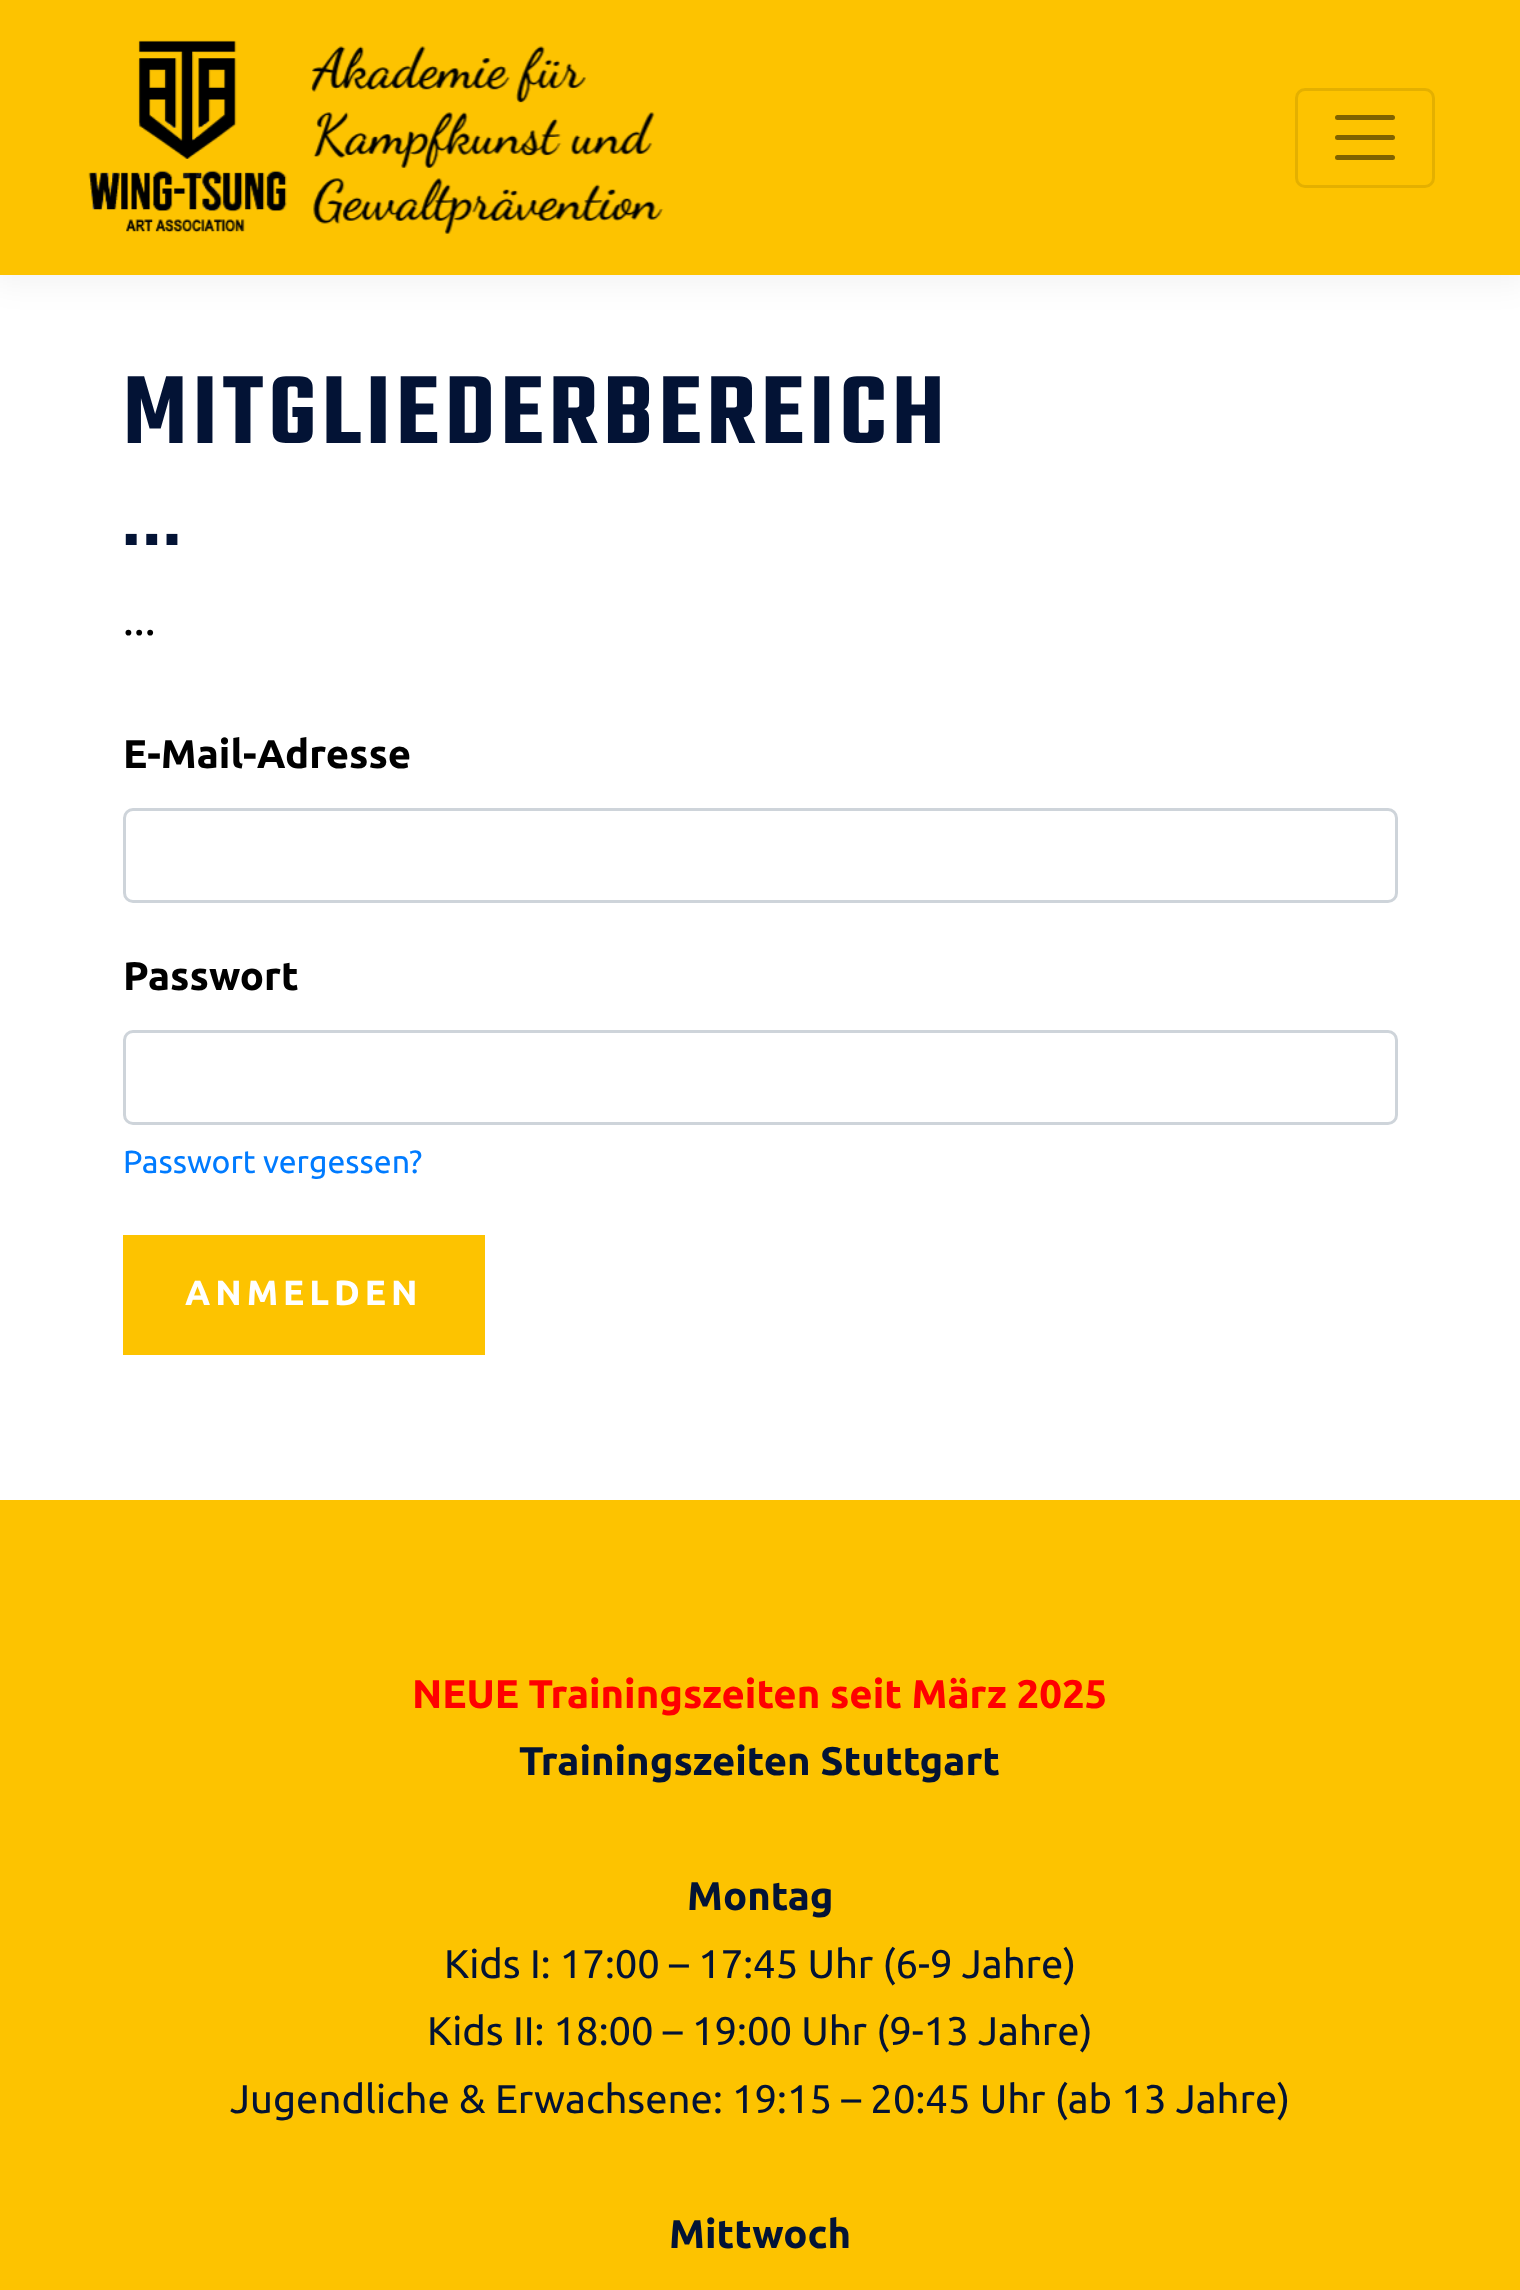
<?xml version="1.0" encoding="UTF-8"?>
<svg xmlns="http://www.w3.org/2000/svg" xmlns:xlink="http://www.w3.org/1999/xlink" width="1520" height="2290">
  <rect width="100%" height="100%" fill="#ffffff" />
  <rect x="-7" y="-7" width="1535" height="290" fill="#000000" fill-opacity="0.05" filter="blur(16px)" />
  <rect width="1520" height="275" fill="#fdc300" />
  <image x="88" y="40" width="576" height="194" xlink:href="image1.png" />
  <rect x="1296.5" y="89.5" width="137" height="97" rx="8.5" fill="none" stroke="#e4b000" stroke-width="3" />
  <path d="M 1337.5 117.5 h 55 m -55 20 h 55 m -55 20 h 55" fill="none" stroke="#7f6200" stroke-width="5" stroke-linecap="round" />
  <rect x="124.5" y="809.5" width="1272" height="92" rx="8.5" fill="none" stroke="#ced4da" stroke-width="3" />
  <rect x="124.5" y="1031.5" width="1272" height="92" rx="8.5" fill="none" stroke="#ced4da" stroke-width="3" />
  <rect x="123" y="1235" width="362" height="120" fill="#fdc300" />
  <rect y="1500" width="1520" height="790" fill="#fdc300" />
  <text x="123" y="443" style="font-family: Teko; font-size: 105px; font-weight: 600; letter-spacing: 5.25px; fill: #031335">MITGLIEDERBEREICH</text>
  <text x="123" y="545" style="font-family: Teko; font-size: 75px; font-weight: 600; letter-spacing: 4px; fill: #031335">...</text>
  <text x="123" y="635" style="font-family: Ubuntu; font-size: 44px; fill: #000000">...</text>
  <text x="123" y="768" style="font-family: Ubuntu; font-size: 40px; font-weight: bold; fill: #000000">E-Mail-Adresse</text>
  <text x="123" y="990" style="font-family: Ubuntu; font-size: 40px; font-weight: bold; fill: #000000">Passwort</text>
  <text x="123" y="1173" style="font-family: Ubuntu; font-size: 32px; fill: #007bff">Passwort vergessen?</text>
  <text x="185" y="1305" style="font-family: Ubuntu; font-size: 35px; font-weight: bold; letter-spacing: 5px; fill: #ffffff">ANMELDEN</text>
  <text x="412" y="1708" style="font-family: Ubuntu; font-size: 40px; font-weight: bold; fill: #ff0000">NEUE Trainingszeiten seit März 2025</text>
  <text x="519" y="1775" style="font-family: Ubuntu; font-size: 40px; font-weight: bold; fill: #031335">Trainingszeiten Stuttgart</text>
  <text x="687" y="1910" style="font-family: Ubuntu; font-size: 40px; font-weight: bold; fill: #031335">Montag</text>
  <text x="444" y="1978" style="font-family: Ubuntu; font-size: 40px; fill: #031335">Kids I: 17:00 – 17:45 Uhr (6-9 Jahre)</text>
  <text x="427" y="2045" style="font-family: Ubuntu; font-size: 40px; fill: #031335">Kids II: 18:00 – 19:00 Uhr (9-13 Jahre)</text>
  <text x="230" y="2113" style="font-family: Ubuntu; font-size: 40px; fill: #031335">Jugendliche &amp; Erwachsene: 19:15 – 20:45 Uhr (ab 13 Jahre)</text>
  <text x="669" y="2248" style="font-family: Ubuntu; font-size: 40px; font-weight: bold; fill: #031335">Mittwoch</text>
</svg>
